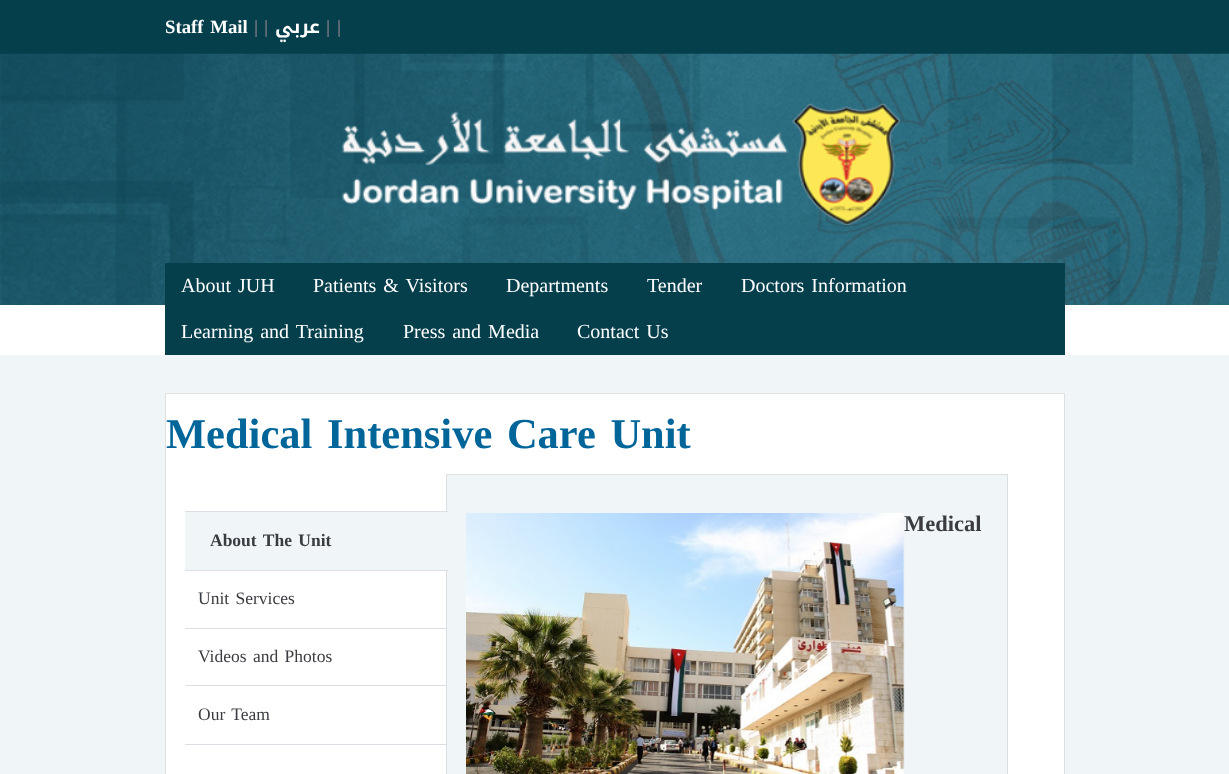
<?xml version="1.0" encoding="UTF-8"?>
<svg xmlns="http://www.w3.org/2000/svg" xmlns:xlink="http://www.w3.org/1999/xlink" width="1229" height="774">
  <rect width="100%" height="100%" fill="#f0f5f7" />
  <rect width="1229" height="54" fill="#063f4c" />
  <rect y="305" width="1229" height="50" fill="#ffffff" />
  <image x="0" y="53" width="1229" height="252" xlink:href="image1.png" />
  <image x="341" y="103" width="560" height="122" xlink:href="image2.png" />
  <rect x="165" y="263" width="900" height="92" fill="#063f4c" />
  <rect x="166" y="394" width="898" height="380" fill="#ffffff" />
  <rect x="1064" y="393" width="1" height="381" fill="#e0e0e0" />
  <rect x="165" y="393" width="1" height="381" fill="#e0e0e0" />
  <rect x="165" y="393" width="900" height="1" fill="#e0e0e0" />
  <rect x="446.5" y="474.5" width="561" height="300" fill="#f0f5f7" stroke="#dcdee4" />
  <image x="466" y="513" width="439" height="261" xlink:href="image3.png" />
  <rect x="185" y="512" width="262" height="58" fill="#f0f5f7" />
  <rect x="185" y="511" width="263" height="1" fill="#dcdee4" />
  <rect x="185" y="570" width="263" height="1" fill="#dcdee4" />
  <rect x="185" y="628" width="261" height="1" fill="#dcdee4" />
  <rect x="185" y="685" width="261" height="1" fill="#dcdee4" />
  <rect x="185" y="744" width="261" height="1" fill="#dcdee4" />
  <text x="165" y="33" word-spacing="2" style="font-family: Liberation Serif; font-size: 18.75px; font-weight: bold; fill: #ffffff">Staff Mail</text>
  <text x="254" y="33" style="font-family: Liberation Serif; font-size: 18.75px; font-weight: bold; fill: #7b7d85">|</text>
  <text x="264" y="33" style="font-family: Liberation Serif; font-size: 18.75px; font-weight: bold; fill: #7b7d85">|</text>
  <text x="320" y="33" style="font-family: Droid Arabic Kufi; font-size: 18.75px; font-weight: bold; direction: rtl; fill: #ffffff">عربي</text>
  <text x="326" y="33" style="font-family: Liberation Serif; font-size: 18.75px; font-weight: bold; fill: #7b7d85">|</text>
  <text x="337" y="33" style="font-family: Liberation Serif; font-size: 18.75px; font-weight: bold; fill: #7b7d85">|</text>
  <text x="181" y="292" word-spacing="2" style="font-family: Liberation Serif; font-size: 20px; fill: #ffffff">About JUH</text>
  <text x="313" y="292" word-spacing="2" style="font-family: Liberation Serif; font-size: 20px; fill: #ffffff">Patients &amp; Visitors</text>
  <text x="506" y="292" style="font-family: Liberation Serif; font-size: 20px; fill: #ffffff">Departments</text>
  <text x="647" y="292" style="font-family: Liberation Serif; font-size: 20px; fill: #ffffff">Tender</text>
  <text x="741" y="292" word-spacing="2" style="font-family: Liberation Serif; font-size: 20px; fill: #ffffff">Doctors Information</text>
  <text x="181" y="338" word-spacing="2" style="font-family: Liberation Serif; font-size: 20px; fill: #ffffff">Learning and Training</text>
  <text x="403" y="338" word-spacing="2" style="font-family: Liberation Serif; font-size: 20px; fill: #ffffff">Press and Media</text>
  <text x="577" y="338" word-spacing="2" style="font-family: Liberation Serif; font-size: 20px; fill: #ffffff">Contact Us</text>
  <text x="166" y="448" word-spacing="4" style="font-family: Liberation Serif; font-size: 42.5px; font-weight: bold; fill: #006699">Medical Intensive Care Unit</text>
  <text x="904" y="531" style="font-family: Liberation Serif; font-size: 22.5px; font-weight: bold; fill: #3a3c41">Medical</text>
  <text x="210" y="546" word-spacing="2" style="font-family: Liberation Serif; font-size: 17.5px; font-weight: bold; fill: #3a3c41">About The Unit</text>
  <text x="198" y="604" word-spacing="2" style="font-family: Liberation Serif; font-size: 17.5px; fill: #3a3c41">Unit Services</text>
  <text x="198" y="662" word-spacing="2" style="font-family: Liberation Serif; font-size: 17.5px; fill: #3a3c41">Videos and Photos</text>
  <text x="198" y="720" word-spacing="2" style="font-family: Liberation Serif; font-size: 17.5px; fill: #3a3c41">Our Team</text>
</svg>
